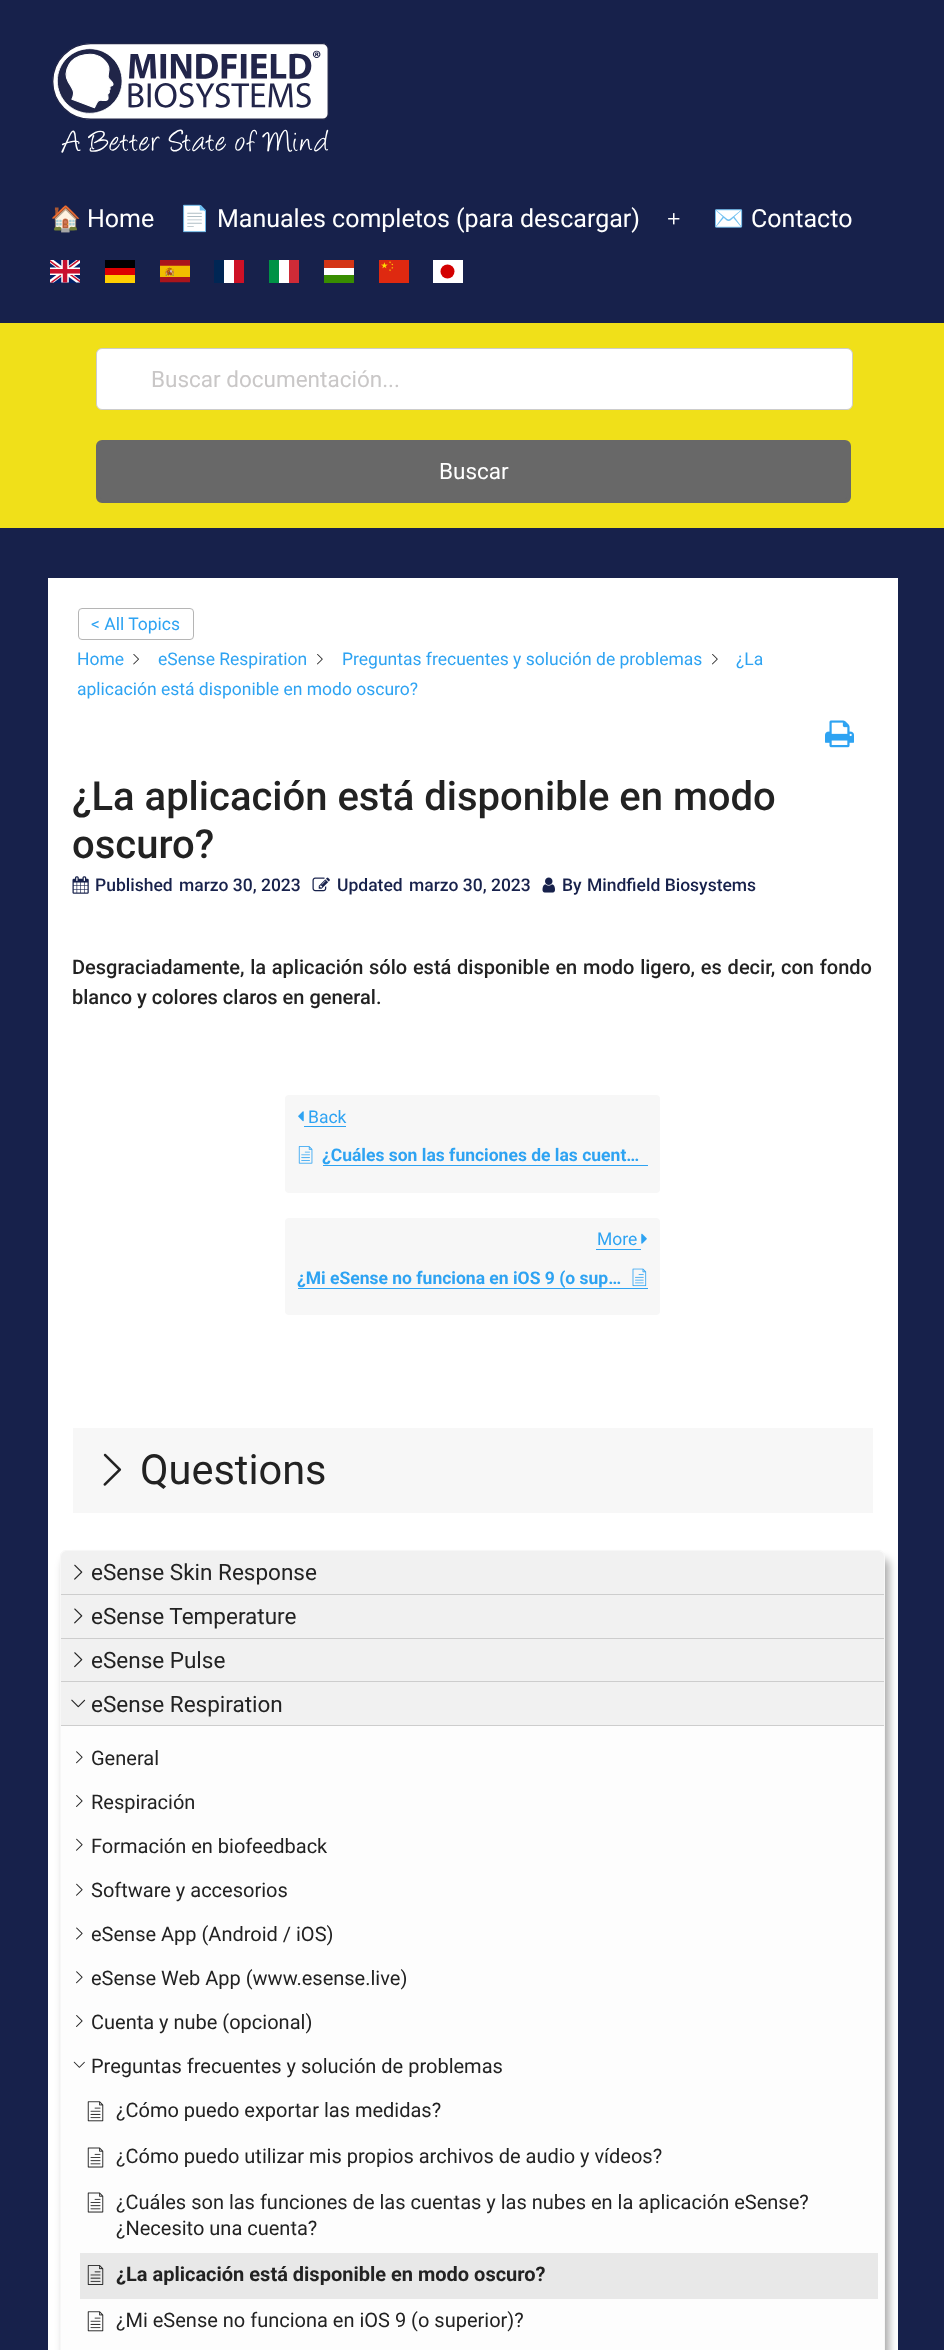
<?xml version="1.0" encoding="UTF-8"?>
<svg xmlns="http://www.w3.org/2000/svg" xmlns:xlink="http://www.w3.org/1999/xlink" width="944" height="2350">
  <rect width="100%" height="100%" fill="#17214b" />
  <image x="52" y="43" width="277" height="110" xlink:href="image1.png" />
  <image x="668" y="213" width="12" height="12" xlink:href="image2.png" />
  <image x="50" y="260" width="30" height="23" xlink:href="image3.png" />
  <rect x="105" y="275" width="30" height="8" fill="#ffce00" />
  <rect x="105" y="260" width="30" height="8" fill="#000000" />
  <rect x="105" y="268" width="30" height="7" fill="#dd0000" />
  <image x="160" y="260" width="30" height="23" xlink:href="image4.png" />
  <rect x="224" y="260" width="10" height="23" fill="#ffffff" />
  <rect x="214" y="260" width="10" height="23" fill="#002654" />
  <rect x="234" y="260" width="10" height="23" fill="#ce1126" />
  <rect x="279" y="260" width="10" height="23" fill="#ffffff" />
  <rect x="269" y="260" width="10" height="23" fill="#009246" />
  <rect x="289" y="260" width="10" height="23" fill="#ce2b37" />
  <rect x="324" y="268" width="30" height="7" fill="#ffffff" />
  <rect x="324" y="275" width="30" height="8" fill="#388d00" />
  <rect x="324" y="260" width="30" height="8" fill="#d43516" />
  <image x="379" y="260" width="30" height="23" xlink:href="image5.png" />
  <rect x="433" y="260" width="30" height="23" fill="#ffffff" />
  <circle cx="447.5" cy="271.5" r="7" fill="#d30000" />
  <rect y="323" width="944" height="205" fill="#f0e019" />
  <rect x="96.5" y="348.5" width="756" height="61" rx="5.5" fill="#ffffff" stroke="#cccccc" />
  <rect x="98" y="442" width="751" height="59" rx="4" fill="#686868" stroke="#686868" stroke-width="4" />
  <rect x="48" y="578" width="850" height="1772" fill="#ffffff" />
  <rect x="78.5" y="608.5" width="115" height="31" rx="3.5" fill="none" stroke="#b5b5b5" />
  <image x="133" y="654" width="6" height="11" xlink:href="image6.png" />
  <image x="317" y="654" width="6" height="11" xlink:href="image7.png" />
  <image x="712" y="654" width="6" height="11" xlink:href="image7.png" />
  <image x="825" y="720" width="29" height="28" xlink:href="image8.png" />
  <image x="72" y="876" width="17" height="18" xlink:href="image9.png" />
  <image x="312" y="877" width="18" height="15" xlink:href="image10.png" />
  <image x="542" y="877" width="13" height="16" xlink:href="image11.png" />
  <rect x="285" y="1095" width="375" height="98" rx="4" fill="#f7f7f7" />
  <image x="298" y="1111" width="6" height="11" xlink:href="image12.png" />
  <rect x="304" y="1126" width="42" height="1" fill="#2ea3f2" />
  <image x="298" y="1146" width="15" height="18" xlink:href="image13.png" />
  <rect x="323" y="1165" width="325" height="1" fill="#2ea3f2" />
  <rect x="285" y="1218" width="375" height="97" rx="4" fill="#f7f7f7" />
  <rect x="596" y="1249" width="45" height="1" fill="#2ea3f2" />
  <image x="641" y="1233" width="6" height="11" xlink:href="image14.png" />
  <rect x="298" y="1288" width="350" height="1" fill="#2ea3f2" />
  <image x="632" y="1268" width="15" height="19" xlink:href="image15.png" />
  <rect x="73" y="1428" width="800" height="85" fill="#f7f7f7" />
  <image x="103" y="1453" width="19" height="33" xlink:href="image16.png" />
  <rect x="64" y="1559" width="825" height="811" rx="6" fill="#000000" fill-opacity="0.34" filter="blur(4.5px)" />
  <rect x="60.5" y="1550.5" width="824" height="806" rx="5.5" fill="#fdfdfd" stroke="#f7f7f7" />
  <path d="M 67 1551 h 811 c 3.5 0 6 2.5 6 6 v 38 h -823 v -38 c 0 -3.5 2.5 -6 6 -6 z" fill="#f1f1f1" />
  <rect x="61" y="1594" width="823" height="1" fill="#cdcdcd" />
  <image x="74" y="1564" width="9" height="16" xlink:href="image17.png" />
  <rect x="61" y="1595" width="823" height="43" fill="#f1f1f1" />
  <rect x="61" y="1638" width="823" height="1" fill="#cdcdcd" />
  <image x="74" y="1608" width="9" height="16" xlink:href="image18.png" />
  <rect x="61" y="1639" width="823" height="86" fill="#f1f1f1" />
  <rect x="61" y="1681" width="823" height="1" fill="#cdcdcd" />
  <image x="74" y="1652" width="9" height="16" xlink:href="image19.png" />
  <rect x="61" y="1725" width="823" height="1" fill="#cdcdcd" />
  <image x="71" y="1699" width="15" height="9" xlink:href="image20.png" />
  <image x="76" y="1751" width="7" height="13" xlink:href="image21.png" />
  <image x="76" y="1795" width="7" height="12" xlink:href="image22.png" />
  <image x="76" y="1838" width="7" height="13" xlink:href="image23.png" />
  <image x="76" y="1883" width="7" height="13" xlink:href="image23.png" />
  <image x="76" y="1927" width="7" height="13" xlink:href="image24.png" />
  <image x="76" y="1971" width="7" height="13" xlink:href="image21.png" />
  <image x="76" y="2015" width="7" height="12" xlink:href="image22.png" />
  <image x="73" y="2061" width="12" height="7" xlink:href="image25.png" />
  <image x="87" y="2101" width="17" height="21" xlink:href="image26.png" />
  <image x="87" y="2147" width="17" height="21" xlink:href="image27.png" />
  <image x="87" y="2192" width="17" height="21" xlink:href="image27.png" />
  <rect x="80" y="2253" width="798" height="46" fill="#e8e8e8" />
  <image x="87" y="2265" width="17" height="20" xlink:href="image28.png" />
  <image x="87" y="2311" width="17" height="21" xlink:href="image26.png" />
  <text x="50" y="227" style="font-family: Noto Color Emoji; font-size: 25px; fill: #ffffff">🏠</text>
  <text x="87" y="227" style="font-family: Roboto; font-size: 25px; fill: #ffffff">Home</text>
  <text x="179" y="227" style="font-family: Noto Color Emoji; font-size: 25px; fill: #ffffff">📄</text>
  <text x="217" y="227" style="font-family: Roboto; font-size: 25px; fill: #ffffff">Manuales completos (para descargar)</text>
  <text x="713" y="227" style="font-family: Noto Color Emoji; font-size: 25px; fill: #ffffff">✉️</text>
  <text x="751" y="227" style="font-family: Roboto; font-size: 25px; fill: #ffffff">Contacto</text>
  <text x="151" y="387" style="font-family: Roboto; font-size: 22.5px; fill: #c9c7c7">Buscar documentación...</text>
  <text x="439" y="479" style="font-family: Roboto; font-size: 22.5px; fill: #ffffff">Buscar</text>
  <text x="91" y="630" style="font-family: Roboto; font-size: 17.5px; fill: #2ea3f2">&lt; All Topics</text>
  <text x="77" y="665" style="font-family: Roboto; font-size: 17.5px; fill: #2ea3f2">Home</text>
  <text x="158" y="665" style="font-family: Roboto; font-size: 17.5px; fill: #2ea3f2">eSense Respiration</text>
  <text x="342" y="665" style="font-family: Roboto; font-size: 17.5px; fill: #2ea3f2">Preguntas frecuentes y solución de problemas</text>
  <text x="736" y="665" style="font-family: Roboto; font-size: 17.5px; fill: #2ea3f2">¿La</text>
  <text x="77" y="695" style="font-family: Roboto; font-size: 17.5px; fill: #2ea3f2">aplicación está disponible en modo oscuro?</text>
  <text x="72" y="810" style="font-family: Roboto; font-size: 40px; font-weight: 500; fill: #222222">¿La aplicación está disponible en modo</text>
  <text x="72" y="858" style="font-family: Roboto; font-size: 40px; font-weight: 500; fill: #222222">oscuro?</text>
  <text x="95" y="891" style="font-family: Roboto; font-size: 17.5px; font-weight: 500; fill: #17214b">Published</text>
  <text x="179" y="891" style="font-family: Roboto; font-size: 17.5px; font-weight: 500; fill: #17214b">marzo 30, 2023</text>
  <text x="337" y="891" style="font-family: Roboto; font-size: 17.5px; font-weight: 500; fill: #17214b">Updated</text>
  <text x="409" y="891" style="font-family: Roboto; font-size: 17.5px; font-weight: 500; fill: #17214b">marzo 30, 2023</text>
  <text x="562" y="891" style="font-family: Roboto; font-size: 17.5px; font-weight: 500; fill: #17214b">By</text>
  <text x="587" y="891" style="font-family: Roboto; font-size: 17.5px; font-weight: 500; fill: #17214b">Mindfield Biosystems</text>
  <text x="72" y="974" word-spacing="0.8" style="font-family: Roboto; font-size: 20px; font-weight: 500; fill: #222222">Desgraciadamente, la aplicación sólo está disponible en modo ligero, es decir, con fondo</text>
  <text x="72" y="1004" style="font-family: Roboto; font-size: 20px; font-weight: 500; fill: #222222">blanco y colores claros en general.</text>
  <text x="308" y="1123" style="font-family: Roboto; font-size: 17.5px; fill: #2ea3f2">Back</text>
  <text x="322" y="1161" style="font-family: Roboto; font-size: 17.5px; font-weight: bold; fill: #2ea3f2">¿Cuáles son las funciones de las cuent…</text>
  <text x="597" y="1245" style="font-family: Roboto; font-size: 17.5px; fill: #2ea3f2">More</text>
  <text x="297" y="1284" style="font-family: Roboto; font-size: 17.5px; font-weight: bold; fill: #2ea3f2">¿Mi eSense no funciona en iOS 9 (o sup…</text>
  <text x="140" y="1484" style="font-family: Roboto; font-size: 41.5px; fill: #222222">Questions</text>
  <text x="91" y="1580" style="font-family: Roboto; font-size: 22.5px; fill: #222222">eSense Skin Response</text>
  <text x="91" y="1624" style="font-family: Roboto; font-size: 22.5px; fill: #222222">eSense Temperature</text>
  <text x="91" y="1668" style="font-family: Roboto; font-size: 22.5px; fill: #222222">eSense Pulse</text>
  <text x="91" y="1712" style="font-family: Roboto; font-size: 22.5px; fill: #222222">eSense Respiration</text>
  <text x="91" y="1765" style="font-family: Roboto; font-size: 20px; fill: #222222">General</text>
  <text x="91" y="1809" style="font-family: Roboto; font-size: 20px; fill: #222222">Respiración</text>
  <text x="91" y="1853" style="font-family: Roboto; font-size: 20px; fill: #222222">Formación en biofeedback</text>
  <text x="91" y="1897" style="font-family: Roboto; font-size: 20px; fill: #222222">Software y accesorios</text>
  <text x="91" y="1941" style="font-family: Roboto; font-size: 20px; fill: #222222">eSense App (Android / iOS)</text>
  <text x="91" y="1985" style="font-family: Roboto; font-size: 20px; fill: #222222">eSense Web App (www.esense.live)</text>
  <text x="91" y="2029" style="font-family: Roboto; font-size: 20px; fill: #222222">Cuenta y nube (opcional)</text>
  <text x="91" y="2073" style="font-family: Roboto; font-size: 20px; fill: #222222">Preguntas frecuentes y solución de problemas</text>
  <text x="116" y="2117" style="font-family: Roboto; font-size: 20px; fill: #222222">¿Cómo puedo exportar las medidas?</text>
  <text x="116" y="2163" style="font-family: Roboto; font-size: 20px; fill: #222222">¿Cómo puedo utilizar mis propios archivos de audio y vídeos?</text>
  <text x="116" y="2209" style="font-family: Roboto; font-size: 20px; fill: #222222">¿Cuáles son las funciones de las cuentas y las nubes en la aplicación eSense?</text>
  <text x="116" y="2235" style="font-family: Roboto; font-size: 20px; fill: #222222">¿Necesito una cuenta?</text>
  <text x="116" y="2281" style="font-family: Roboto; font-size: 20px; font-weight: bold; fill: #222222">¿La aplicación está disponible en modo oscuro?</text>
  <text x="116" y="2327" style="font-family: Roboto; font-size: 20px; fill: #222222">¿Mi eSense no funciona en iOS 9 (o superior)?</text>
</svg>
